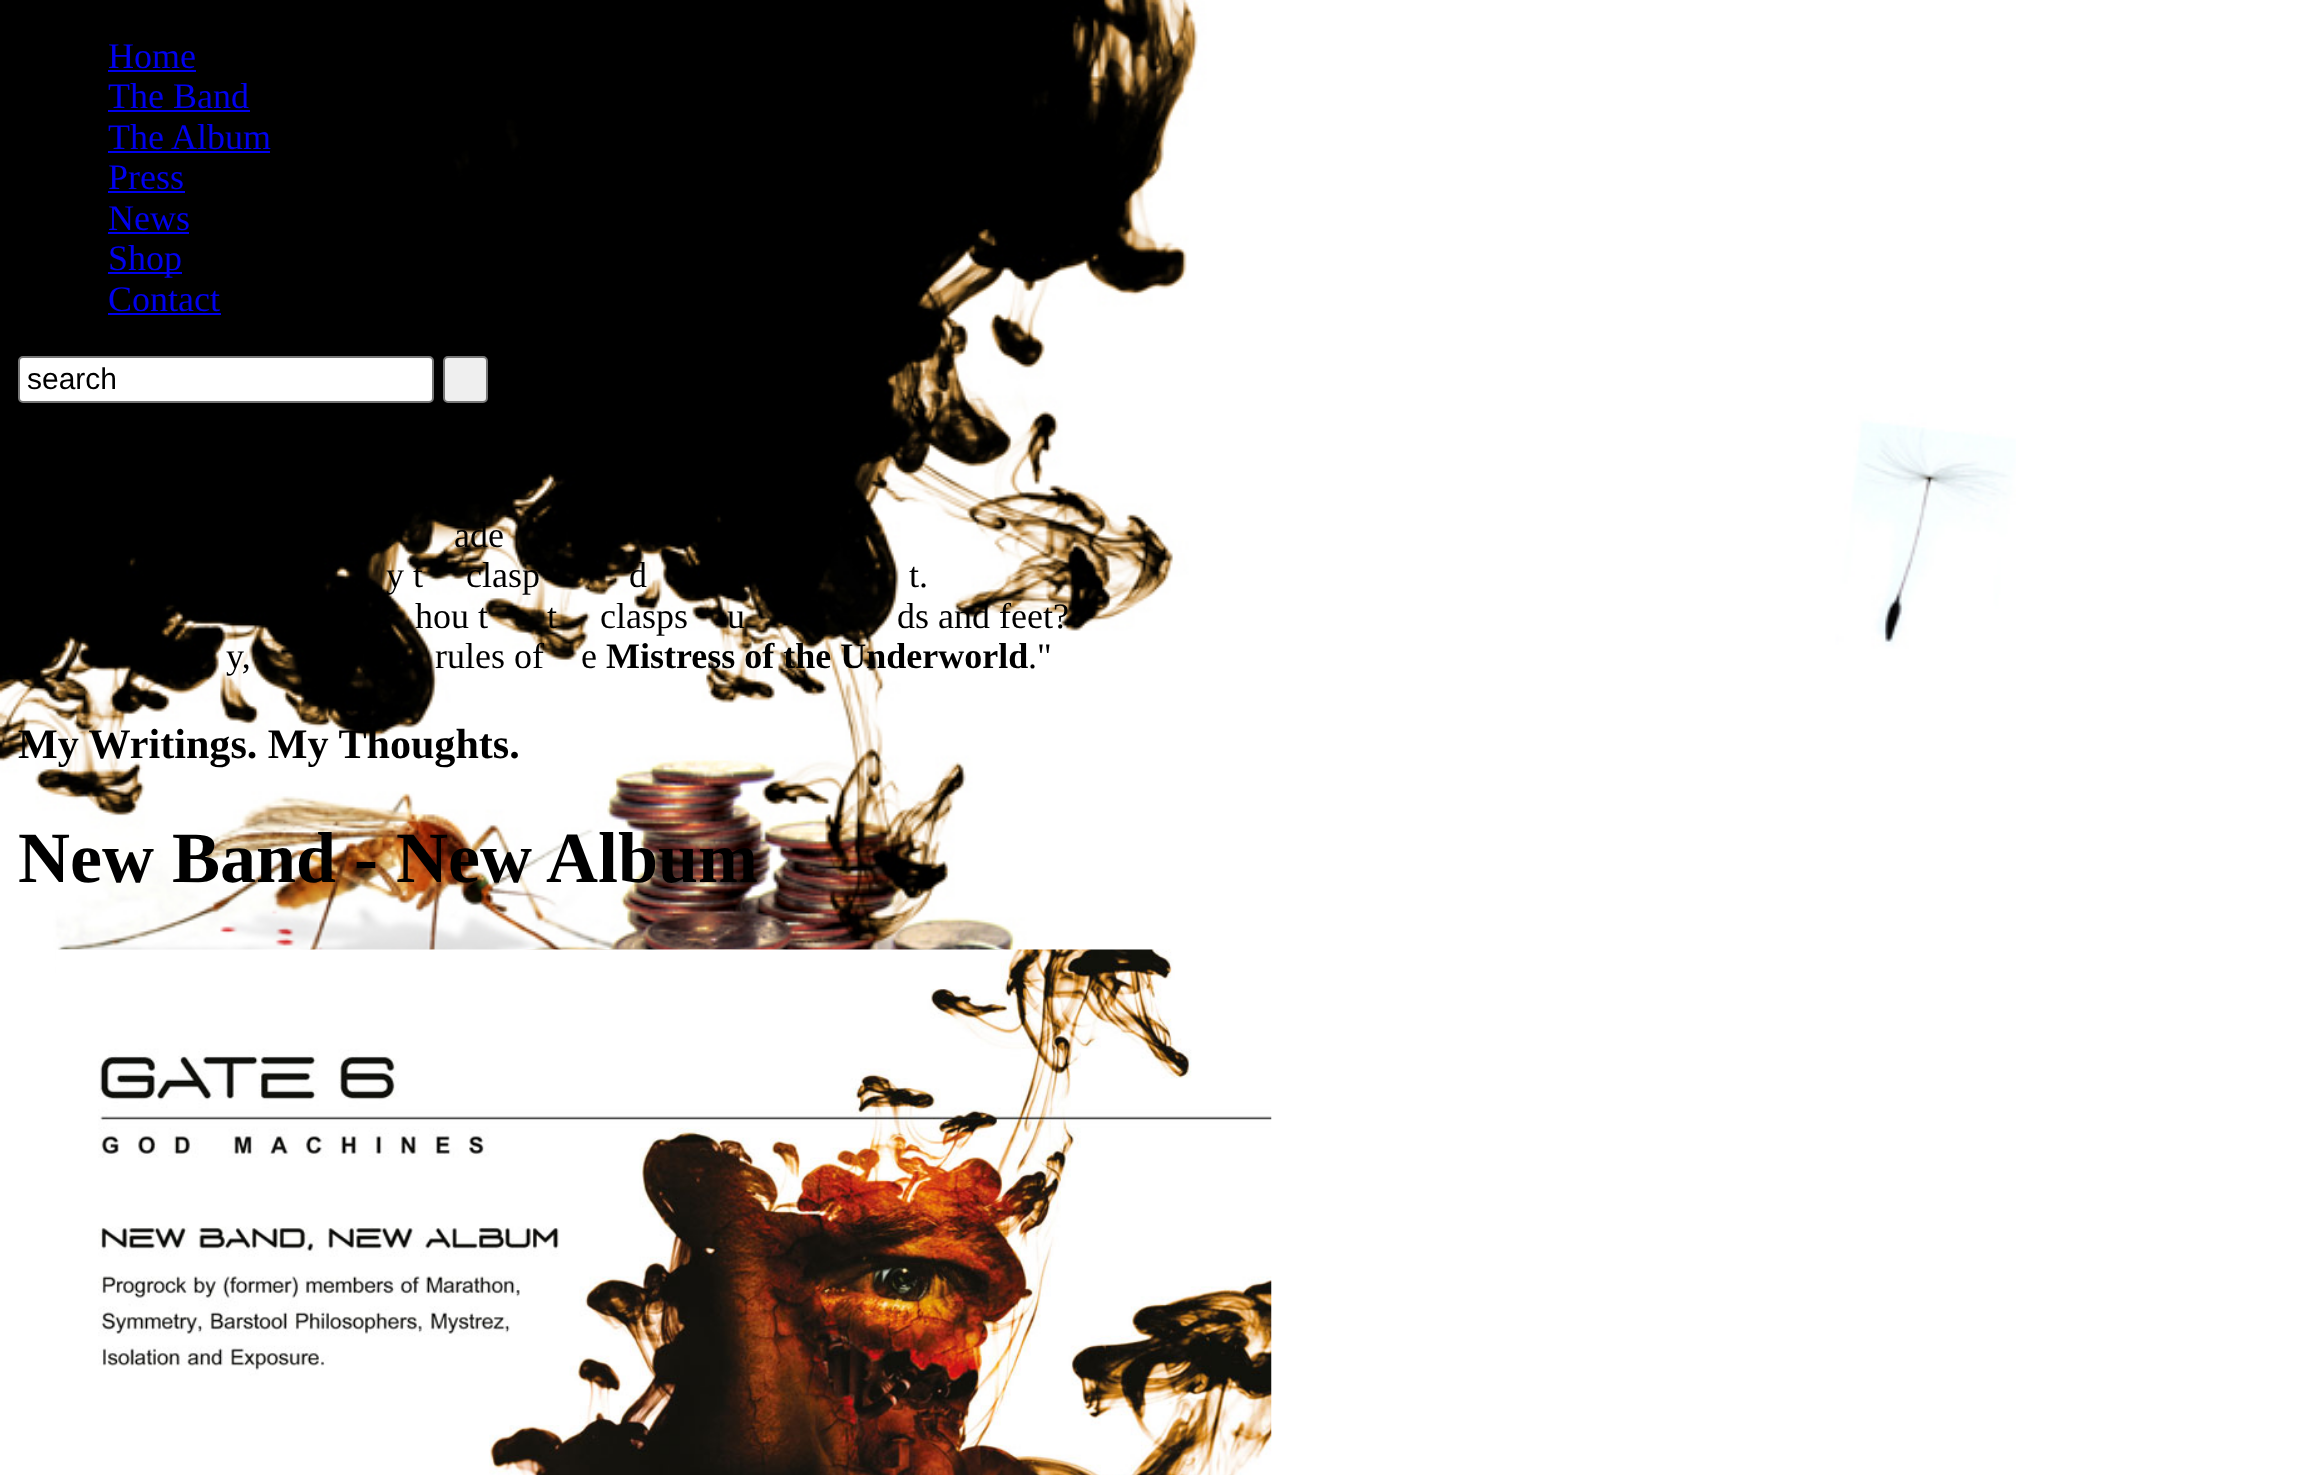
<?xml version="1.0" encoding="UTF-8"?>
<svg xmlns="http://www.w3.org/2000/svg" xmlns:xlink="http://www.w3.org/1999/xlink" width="2299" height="1475">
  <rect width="100%" height="100%" fill="#ffffff" />
  <image x="0" y="0" width="2016" height="1117" xlink:href="image1.png" />
  <rect x="108" y="70" width="88" height="2" fill="#0000ee" />
  <rect x="108" y="110" width="142" height="2" fill="#0000ee" />
  <rect x="108" y="151" width="162" height="2" fill="#0000ee" />
  <rect x="108" y="191" width="77" height="2" fill="#0000ee" />
  <rect x="108" y="232" width="81" height="2" fill="#0000ee" />
  <rect x="108" y="272" width="74" height="2" fill="#0000ee" />
  <rect x="108" y="313" width="113" height="2" fill="#0000ee" />
  <rect x="19" y="357" width="414" height="45" rx="4" fill="#ffffff" stroke="#767676" stroke-width="2" />
  <rect x="444" y="357" width="43" height="45" rx="4" fill="#efefef" stroke="#767676" stroke-width="2" />
  <image x="56" y="949" width="1216" height="526" xlink:href="image2.png" />
  <text x="108" y="68" style="font-family: Liberation Serif; font-size: 36px; fill: #0000ee">Home</text>
  <text x="108" y="108" style="font-family: Liberation Serif; font-size: 36px; fill: #0000ee">The Band</text>
  <text x="108" y="149" style="font-family: Liberation Serif; font-size: 36px; fill: #0000ee">The Album</text>
  <text x="108" y="189" style="font-family: Liberation Serif; font-size: 36px; fill: #0000ee">Press</text>
  <text x="108" y="230" style="font-family: Liberation Serif; font-size: 36px; fill: #0000ee">News</text>
  <text x="108" y="270" style="font-family: Liberation Serif; font-size: 36px; fill: #0000ee">Shop</text>
  <text x="108" y="311" style="font-family: Liberation Serif; font-size: 36px; fill: #0000ee">Contact</text>
  <text x="27" y="389" style="font-family: Liberation Sans; font-size: 30px; fill: #000000">search</text>
  <text x="454" y="547" style="font-family: Liberation Serif; font-size: 36px; fill: #000000">ade</text>
  <text x="386" y="587" style="font-family: Liberation Serif; font-size: 36px; fill: #000000">y t</text>
  <text x="466" y="587" style="font-family: Liberation Serif; font-size: 36px; fill: #000000">clasp</text>
  <text x="629" y="587" style="font-family: Liberation Serif; font-size: 36px; fill: #000000">d</text>
  <text x="909" y="587" style="font-family: Liberation Serif; font-size: 36px; fill: #000000">t.</text>
  <text x="415" y="628" style="font-family: Liberation Serif; font-size: 36px; fill: #000000">hou t</text>
  <text x="547" y="628" style="font-family: Liberation Serif; font-size: 36px; fill: #000000">t</text>
  <text x="600" y="628" style="font-family: Liberation Serif; font-size: 36px; fill: #000000">clasps</text>
  <text x="727" y="628" style="font-family: Liberation Serif; font-size: 36px; fill: #000000">u</text>
  <text x="897" y="628" style="font-family: Liberation Serif; font-size: 36px; fill: #000000">ds and feet?</text>
  <text x="226" y="668" style="font-family: Liberation Serif; font-size: 36px; fill: #000000">y,</text>
  <text x="435" y="668" style="font-family: Liberation Serif; font-size: 36px; fill: #000000">rules of</text>
  <text x="581" y="668" style="font-family: Liberation Serif; font-size: 36px; fill: #000000">e</text>
  <text x="606" y="668" style="font-family: Liberation Serif; font-size: 36px; font-weight: bold; fill: #000000">Mistress of the Underworld</text>
  <text x="1028" y="668" style="font-family: Liberation Serif; font-size: 36px; fill: #000000">."</text>
  <text x="18" y="758" style="font-family: Liberation Serif; font-size: 42.1px; font-weight: bold; fill: #000000">My Writings. My Thoughts.</text>
  <text x="18" y="882" style="font-family: Liberation Serif; font-size: 72px; font-weight: bold; fill: #000000">New Band - New Album</text>
</svg>
